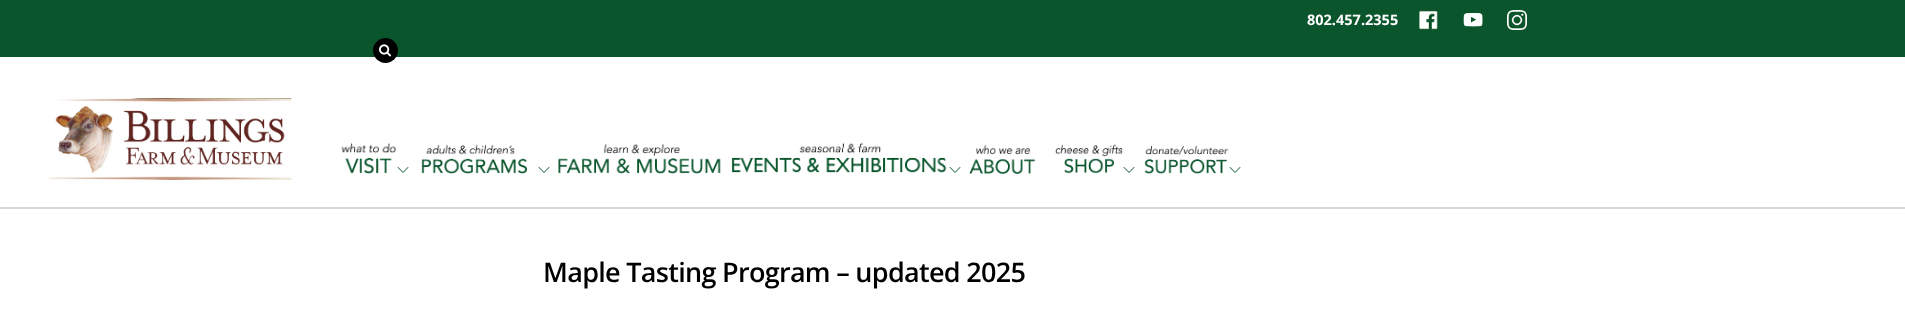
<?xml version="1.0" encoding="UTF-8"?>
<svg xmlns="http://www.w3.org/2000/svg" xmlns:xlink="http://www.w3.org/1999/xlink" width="1905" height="333">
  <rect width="100%" height="100%" fill="#ffffff" />
  <rect y="207" width="1905" height="2" fill="#d8d7d7" />
  <rect width="1905" height="57" fill="#0a552c" />
  <image x="1419" y="10" width="19" height="20" xlink:href="image1.png" />
  <image x="1463" y="13" width="20" height="14" xlink:href="image2.png" />
  <image x="1506" y="10" width="21" height="21" xlink:href="image3.png" />
  <circle cx="385.5" cy="50.5" r="12.5" fill="#000000" />
  <image x="379" y="44" width="12" height="13" xlink:href="image4.png" />
  <image x="49" y="98" width="243" height="82" xlink:href="image5.png" />
  <image x="341" y="142" width="56" height="32" xlink:href="image6.png" />
  <image x="397" y="167" width="12" height="6" xlink:href="image7.png" />
  <image x="421" y="144" width="106" height="30" xlink:href="image8.png" />
  <image x="538" y="167" width="12" height="6" xlink:href="image7.png" />
  <image x="558" y="143" width="163" height="31" xlink:href="image9.png" />
  <image x="731" y="142" width="216" height="31" xlink:href="image10.png" />
  <image x="949" y="167" width="12" height="6" xlink:href="image7.png" />
  <image x="969" y="144" width="67" height="30" xlink:href="image11.png" />
  <image x="1055" y="144" width="68" height="30" xlink:href="image12.png" />
  <image x="1123" y="167" width="12" height="6" xlink:href="image7.png" />
  <image x="1144" y="145" width="85" height="29" xlink:href="image13.png" />
  <image x="1229" y="167" width="12" height="6" xlink:href="image7.png" />
  <text x="1307" y="25" style="font-family: Open Sans; font-size: 14.5px; font-weight: bold; fill: #ffffff">802.457.2355</text>
  <text x="543" y="282" style="font-family: Open Sans; font-size: 27px; font-weight: 600; letter-spacing: -0.7px; fill: #000000">Maple Tasting Program – updated 2025</text>
</svg>
